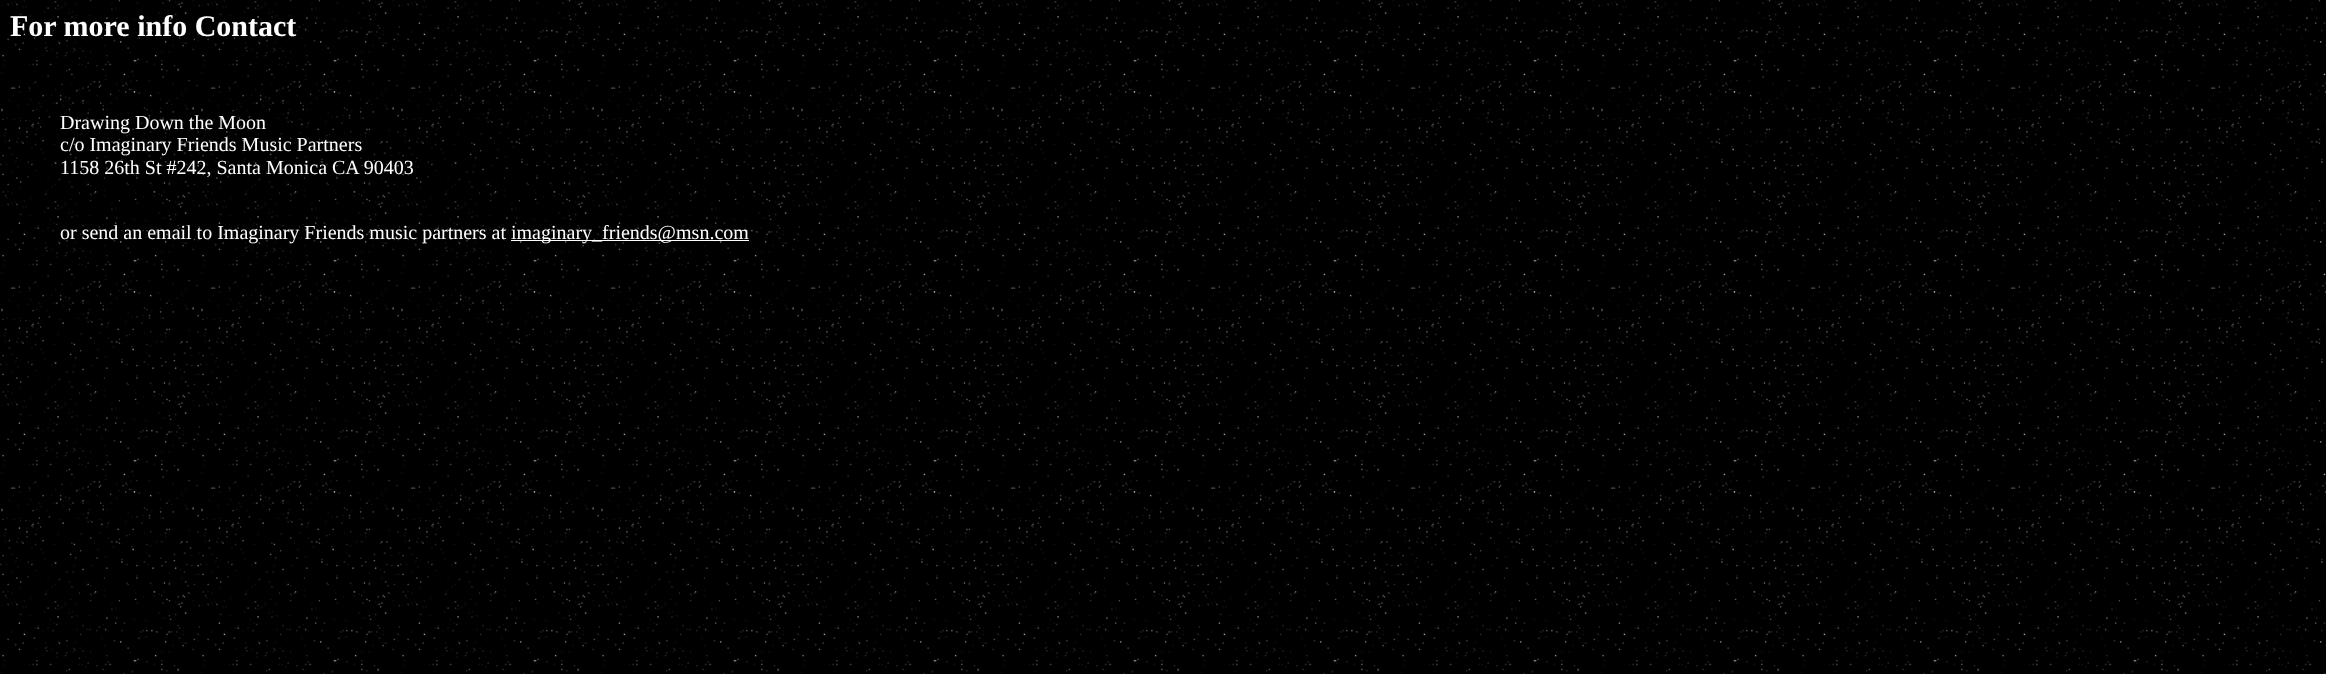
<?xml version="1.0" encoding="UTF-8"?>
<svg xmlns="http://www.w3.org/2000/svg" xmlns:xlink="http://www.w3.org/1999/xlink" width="2326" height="674">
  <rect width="100%" height="100%" fill="#ffffff" />
  <image x="0" y="0" width="2326" height="674" xlink:href="image1.png" />
  <rect x="511" y="240" width="238" height="1" fill="#ffffff" />
  <text x="10" y="36" style="font-family: Liberation Serif; font-size: 30px; font-weight: bold; fill: #ffffff">For more info Contact</text>
  <text x="60" y="129" style="font-family: Liberation Serif; font-size: 20px; fill: #ffffff">Drawing Down the Moon</text>
  <text x="60" y="151" style="font-family: Liberation Serif; font-size: 20px; fill: #ffffff">c/o Imaginary Friends Music Partners</text>
  <text x="60" y="174" style="font-family: Liberation Serif; font-size: 20px; fill: #ffffff">1158 26th St #242, Santa Monica CA 90403</text>
  <text x="60" y="239" style="font-family: Liberation Serif; font-size: 20px; fill: #ffffff">or send an email to Imaginary Friends music partners at</text>
  <text x="511" y="239" style="font-family: Liberation Serif; font-size: 20px; fill: #ffffff">imaginary_friends@msn.com</text>
</svg>
